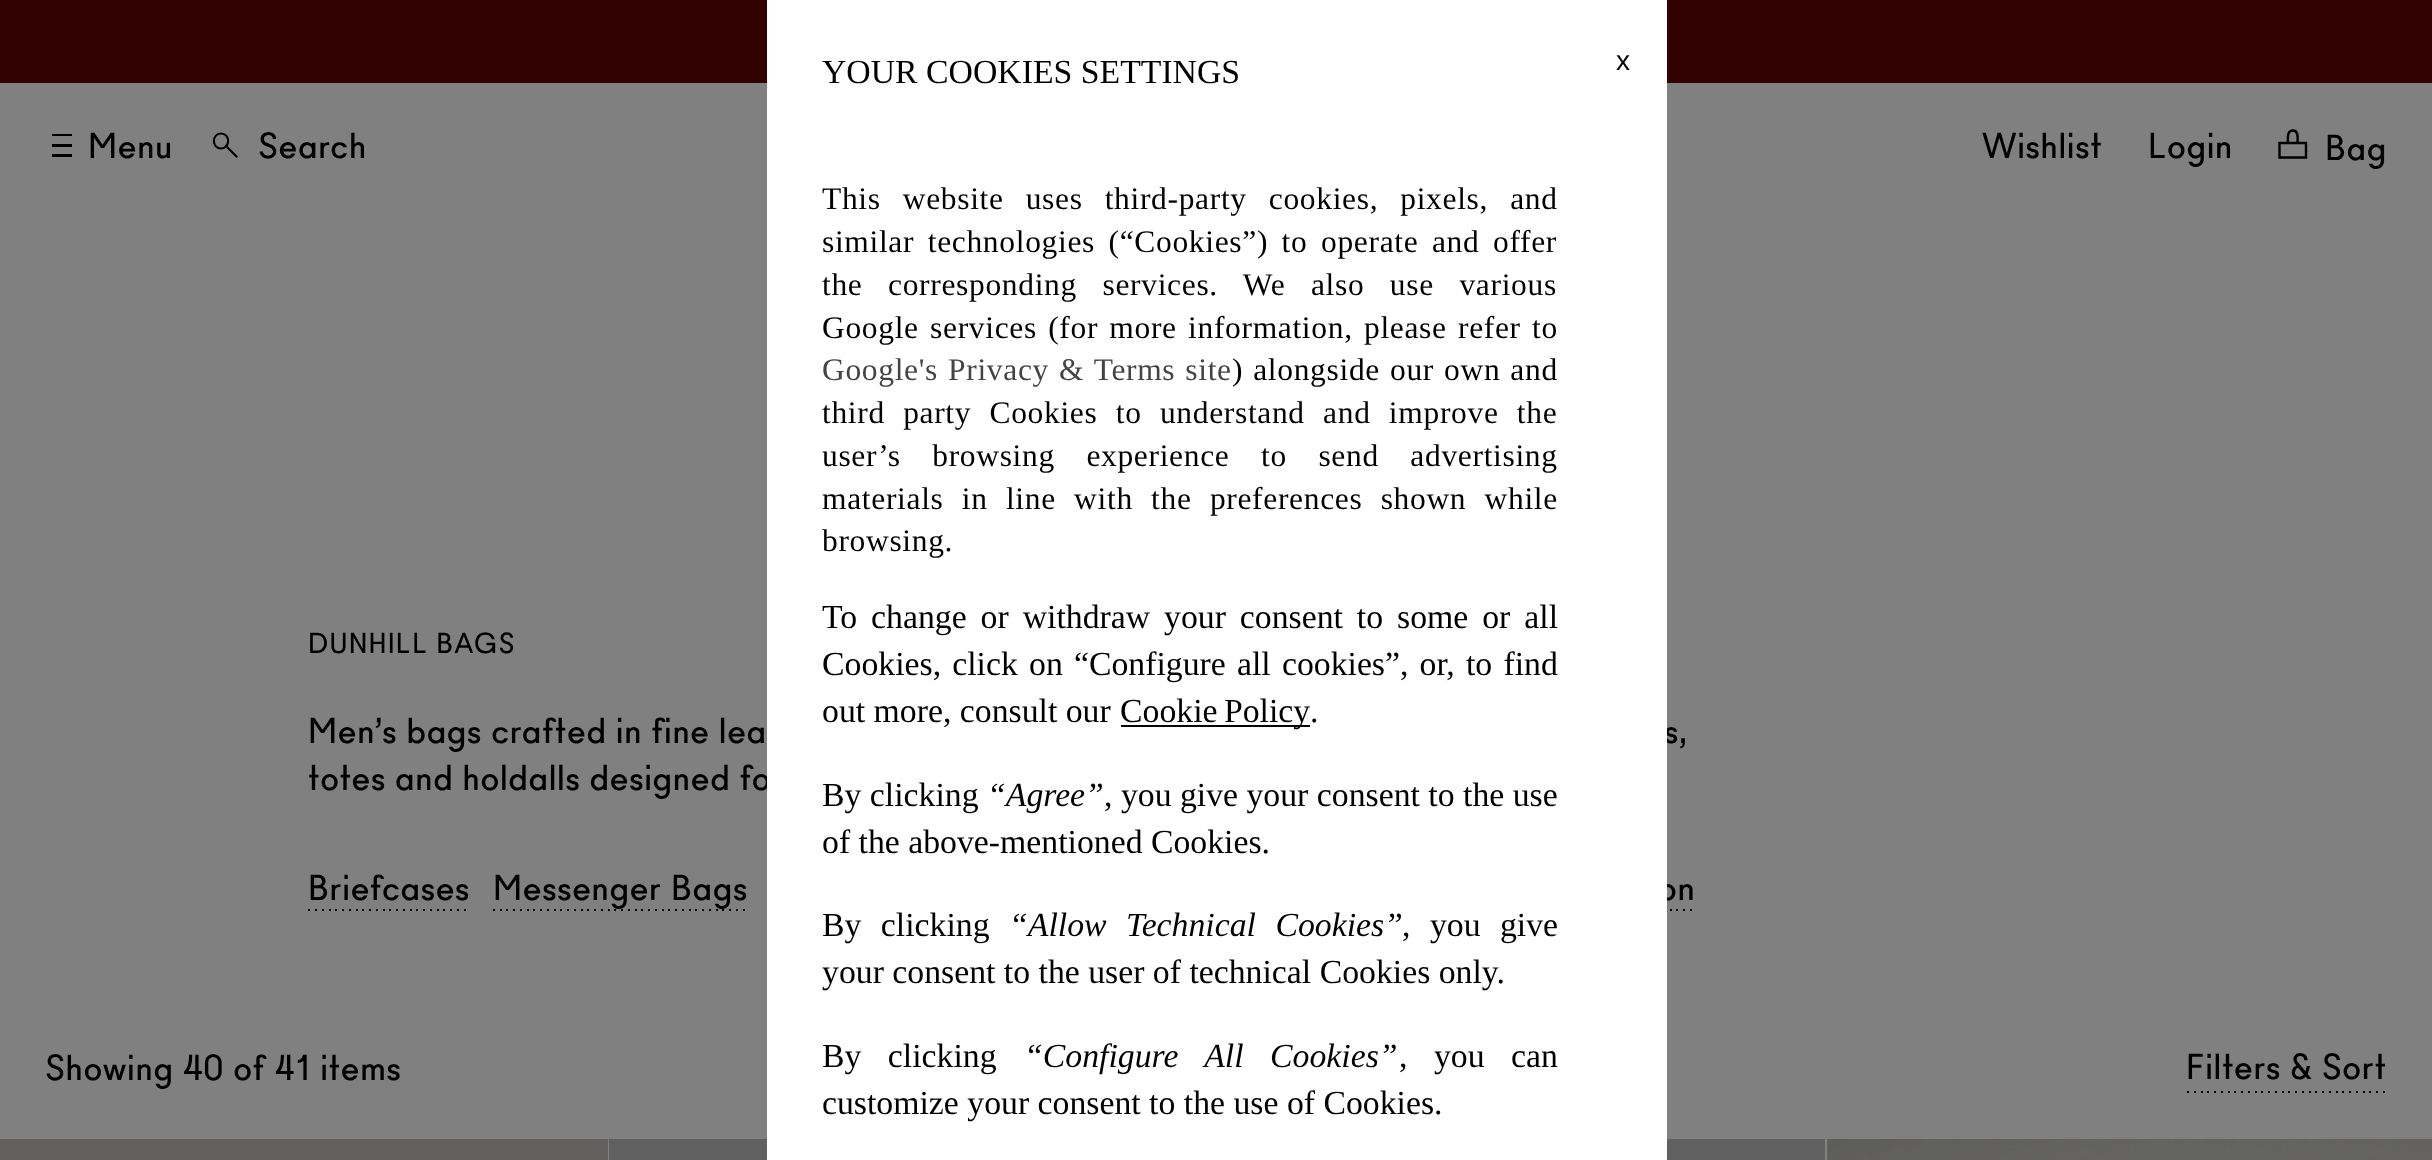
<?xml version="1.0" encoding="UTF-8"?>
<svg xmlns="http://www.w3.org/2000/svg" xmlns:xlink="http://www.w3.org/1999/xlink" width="2432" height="1160">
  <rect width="100%" height="100%" fill="#808080" />
  <rect width="2432" height="83" fill="#330000" />
  <rect x="52" y="134" width="20" height="2" fill="#000000" />
  <rect x="52" y="144" width="20" height="3" fill="#000000" />
  <rect x="52" y="154" width="20" height="3" fill="#000000" />
  <path d="M 221 148.5 c 9.5 0 9.5 -15 0 -15 c -9.5 0 -9.5 15 0 15 z" fill="none" stroke="#000000" stroke-width="2.1" />
  <path d="M 226 146 l 10.5 10.5" fill="none" stroke="#000000" stroke-width="2.1" stroke-linecap="square" />
  <path d="M 2306 143 h -26.5 v 14.5 h 26.5 z m -13 -12.5 c 6 0 4.5 8.5 4.5 12.5 h -9.5 c 0 -4 -1.5 -12.5 5 -12.5 z" fill="none" stroke="#000000" stroke-width="2.4" />
  <image x="308" y="909" width="158" height="2" xlink:href="image1.png" />
  <image x="493" y="909" width="252" height="2" xlink:href="image2.png" />
  <image x="1670" y="909" width="22" height="2" xlink:href="image3.png" />
  <image x="2187" y="1091" width="198" height="2" xlink:href="image4.png" />
  <rect y="1139" width="608" height="21" fill="#61605f" />
  <rect x="609" y="1139" width="158" height="21" fill="#606060" />
  <rect x="1667" y="1139" width="158" height="21" fill="#606060" />
  <image x="1827" y="1139" width="605" height="21" xlink:href="image5.png" />
  <text x="88" y="158" style="font-family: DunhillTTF; font-size: 33.75px; letter-spacing: 0.67px; fill: #000000">Menu</text>
  <text x="258" y="158" style="font-family: DunhillTTF; font-size: 33.75px; letter-spacing: 0.67px; fill: #000000">Search</text>
  <text x="1982" y="158" style="font-family: DunhillTTF; font-size: 33.75px; letter-spacing: 0.67px; fill: #000000">Wishlist</text>
  <text x="2148" y="158" style="font-family: DunhillTTF; font-size: 33.75px; letter-spacing: 0.67px; fill: #000000">Login</text>
  <text x="2325" y="160" style="font-family: DunhillTTF; font-size: 33.75px; letter-spacing: 0.67px; fill: #000000">Bag</text>
  <text x="308" y="653" style="font-family: DunhillTTF; font-size: 27px; letter-spacing: 1.1px; fill: #000000">DUNHILL BAGS</text>
  <text x="308" y="743" style="font-family: DunhillTTF; font-size: 33.75px; letter-spacing: 0.67px; fill: #000000">Men’s bags crafted in fine lea</text>
  <text x="1664" y="743" style="font-family: DunhillTTF; font-size: 33.75px; letter-spacing: 0.67px; fill: #000000">s,</text>
  <text x="308" y="790" style="font-family: DunhillTTF; font-size: 33.75px; letter-spacing: 0.67px; fill: #000000">totes and holdalls designed fo</text>
  <text x="308" y="900" style="font-family: DunhillTTF; font-size: 33.75px; letter-spacing: 0.67px; fill: #000000">Briefcases</text>
  <text x="493" y="900" style="font-family: DunhillTTF; font-size: 33.75px; letter-spacing: 0.67px; fill: #000000">Messenger Bags</text>
  <text x="1658" y="900" style="font-family: DunhillTTF; font-size: 33.75px; letter-spacing: 0.67px; fill: #000000">on</text>
  <rect x="767" width="900" height="1160" fill="#ffffff" />
  <text x="1616" y="70" style="font-family: Liberation Sans; font-size: 28px; fill: #000000">x</text>
  <text x="822" y="1114" style="font-family: Liberation Serif; font-size: 33.75px; fill: #000000">customize your consent to the use of Cookies.</text>
  <text x="1399" y="1067" word-spacing="18" style="font-family: Liberation Serif; font-size: 33.75px; fill: #000000">, you can</text>
  <text x="1024" y="1067" word-spacing="18" style="font-family: Liberation Serif; font-size: 33.75px; font-style: italic; fill: #000000">“Configure All Cookies”</text>
  <text x="822" y="1067" word-spacing="18" style="font-family: Liberation Serif; font-size: 33.75px; fill: #000000">By clicking</text>
  <text x="822" y="983" style="font-family: Liberation Serif; font-size: 33.75px; fill: #000000">your consent to the user of technical Cookies only.</text>
  <text x="1402" y="936" word-spacing="11" style="font-family: Liberation Serif; font-size: 33.75px; fill: #000000">, you give</text>
  <text x="1009" y="936" word-spacing="11" style="font-family: Liberation Serif; font-size: 33.75px; font-style: italic; fill: #000000">“Allow Technical Cookies”</text>
  <text x="822" y="936" word-spacing="11" style="font-family: Liberation Serif; font-size: 33.75px; fill: #000000">By clicking</text>
  <text x="822" y="853" style="font-family: Liberation Serif; font-size: 33.75px; fill: #000000">of the above-mentioned Cookies.</text>
  <text x="1104" y="806" style="font-family: Liberation Serif; font-size: 33.75px; fill: #000000">, you give your consent to the use</text>
  <text x="987" y="806" style="font-family: Liberation Serif; font-size: 33.75px; font-style: italic; fill: #000000">“Agree”</text>
  <text x="822" y="806" style="font-family: Liberation Serif; font-size: 33.75px; fill: #000000">By clicking</text>
  <text x="1310" y="722" style="font-family: Liberation Serif; font-size: 33.75px; fill: #000000">.</text>
  <rect x="1121" y="725" width="189" height="2" fill="#000000" />
  <text x="1120" y="722" word-spacing="-2" style="font-family: Liberation Serif; font-size: 33.75px; fill: #000000">Cookie Policy</text>
  <text x="822" y="722" style="font-family: Liberation Serif; font-size: 33.75px; fill: #000000">out more, consult our</text>
  <text x="822" y="675" word-spacing="2.75" style="font-family: Liberation Serif; font-size: 33.75px; fill: #000000">Cookies, click on “Configure all cookies”, or, to find</text>
  <text x="822" y="628" word-spacing="5.5" style="font-family: Liberation Serif; font-size: 33.75px; fill: #000000">To change or withdraw your consent to some or all</text>
  <text x="822" y="551" style="font-family: Liberation Serif; font-size: 31.5px; letter-spacing: 0.67px; fill: #000000">browsing.</text>
  <text x="822" y="509" word-spacing="9.75" style="font-family: Liberation Serif; font-size: 31.5px; letter-spacing: 0.67px; fill: #000000">materials in line with the preferences shown while</text>
  <text x="822" y="466" word-spacing="23" style="font-family: Liberation Serif; font-size: 31.5px; letter-spacing: 0.67px; fill: #000000">user’s browsing experience to send advertising</text>
  <text x="822" y="423" word-spacing="9.75" style="font-family: Liberation Serif; font-size: 31.5px; letter-spacing: 0.67px; fill: #000000">third party Cookies to understand and improve the</text>
  <text x="1232" y="380" word-spacing="1.5" style="font-family: Liberation Serif; font-size: 31.5px; letter-spacing: 0.67px; fill: #000000">) alongside our own and</text>
  <text x="822" y="380" word-spacing="1.5" style="font-family: Liberation Serif; font-size: 31.5px; letter-spacing: 0.67px; fill: #444444">Google's Privacy &amp; Terms site</text>
  <text x="822" y="338" word-spacing="2.75" style="font-family: Liberation Serif; font-size: 31.5px; letter-spacing: 0.67px; fill: #000000">Google services (for more information, please refer to</text>
  <text x="822" y="295" word-spacing="17" style="font-family: Liberation Serif; font-size: 31.5px; letter-spacing: 0.67px; fill: #000000">the corresponding services. We also use various</text>
  <text x="822" y="252" word-spacing="5" style="font-family: Liberation Serif; font-size: 31.5px; letter-spacing: 0.67px; fill: #000000">similar technologies (“Cookies”) to operate and offer</text>
  <text x="822" y="209" word-spacing="13.5" style="font-family: Liberation Serif; font-size: 31.5px; letter-spacing: 0.67px; fill: #000000">This website uses third-party cookies, pixels, and</text>
  <text x="822" y="83" style="font-family: Liberation Serif; font-size: 33.75px; fill: #000000">YOUR COOKIES SETTINGS</text>
  <text x="45" y="1080" style="font-family: DunhillTTF; font-size: 33.75px; letter-spacing: 0.67px; fill: #000000">Showing 40 of 41 items</text>
  <text x="2186" y="1079" style="font-family: DunhillTTF; font-size: 33.75px; letter-spacing: 0.67px; fill: #000000">Filters &amp; Sort</text>
</svg>
